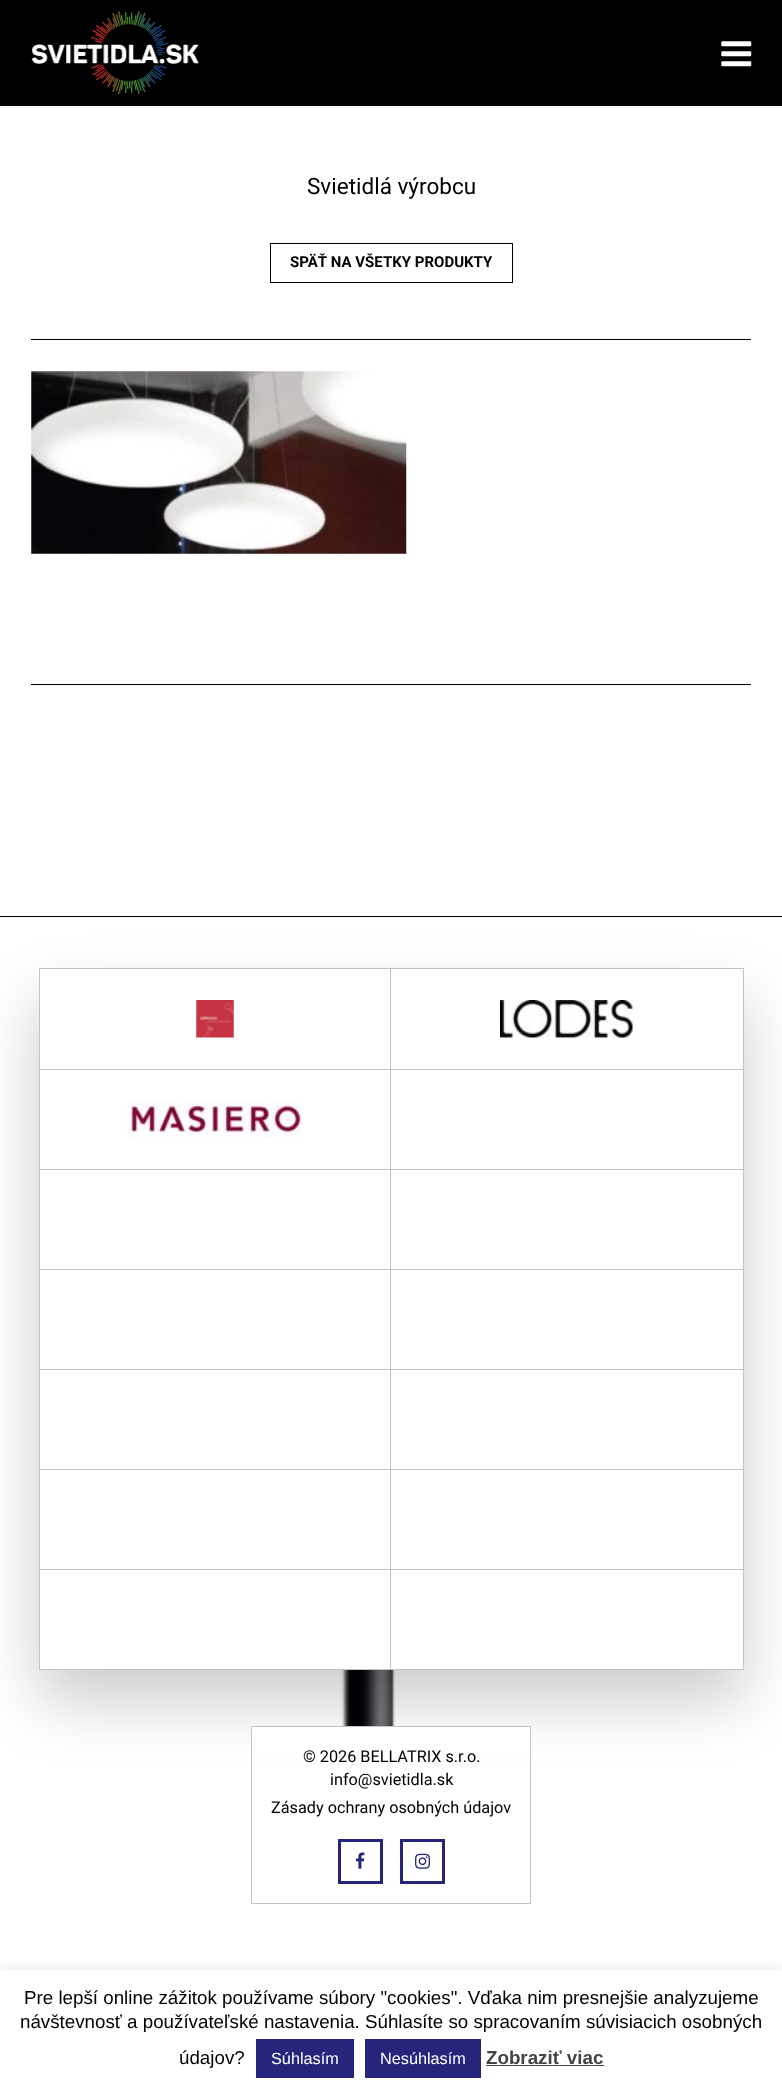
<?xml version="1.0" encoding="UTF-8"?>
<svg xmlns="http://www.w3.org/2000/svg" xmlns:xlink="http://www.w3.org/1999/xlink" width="782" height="2092">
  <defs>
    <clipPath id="clip1"><rect x="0" y="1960" width="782" height="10" /></clipPath>
  </defs>
  <rect width="100%" height="100%" fill="#ffffff" />
  <rect width="782" height="106" fill="#000000" />
  <image x="31" y="11" width="168" height="83" xlink:href="image1.png" />
  <image x="721" y="41" width="31" height="26" xlink:href="image2.png" />
  <rect x="31" y="339" width="720" height="1" fill="#000000" />
  <rect x="270.5" y="243.5" width="242" height="39" fill="none" stroke="#000000" />
  <image x="31" y="371" width="376" height="183" xlink:href="image3.png" />
  <rect x="31" y="684" width="720" height="1" fill="#000000" />
  <rect y="916" width="782" height="1" fill="#000000" />
  <image x="340" y="1670" width="59" height="56" xlink:href="image4.png" />
  <rect x="39" y="999" width="705" height="702" fill="#000000" fill-opacity="0.2" filter="blur(31px)" />
  <rect x="39.5" y="968.5" width="704" height="701" fill="#ffffff" stroke="#c4c4c4" />
  <rect x="390" y="969" width="1" height="100" fill="#c4c4c4" />
  <image x="196" y="1000" width="38" height="38" xlink:href="image5.png" />
  <image x="500" y="1000" width="133" height="38" xlink:href="image6.png" />
  <rect x="40" y="1069" width="703" height="1" fill="#c4c4c4" />
  <rect x="390" y="1069" width="1" height="100" fill="#c4c4c4" />
  <image x="127" y="1100" width="176" height="38" xlink:href="image7.png" />
  <rect x="40" y="1169" width="703" height="1" fill="#c4c4c4" />
  <rect x="390" y="1169" width="1" height="100" fill="#c4c4c4" />
  <rect x="40" y="1269" width="703" height="1" fill="#c4c4c4" />
  <rect x="390" y="1269" width="1" height="100" fill="#c4c4c4" />
  <rect x="40" y="1369" width="703" height="1" fill="#c4c4c4" />
  <rect x="390" y="1369" width="1" height="100" fill="#c4c4c4" />
  <rect x="40" y="1469" width="703" height="1" fill="#c4c4c4" />
  <rect x="390" y="1469" width="1" height="100" fill="#c4c4c4" />
  <rect x="40" y="1569" width="703" height="1" fill="#c4c4c4" />
  <rect x="390" y="1569" width="1" height="100" fill="#c4c4c4" />
  <rect x="252" y="1727" width="278" height="25" fill="#ffffff" />
  <rect x="251.5" y="1726.5" width="279" height="177" fill="none" stroke="#c4c4c4" />
  <rect x="339.5" y="1840.5" width="42" height="42" fill="none" stroke="#26257b" stroke-width="3" />
  <image x="355" y="1852" width="10" height="17" xlink:href="image8.png" />
  <rect x="401.5" y="1840.5" width="42" height="42" fill="none" stroke="#26257b" stroke-width="3" />
  <image x="415" y="1853" width="15" height="16" xlink:href="image9.png" />
  <g clip-path="url(#clip1)">
    <rect y="1969" width="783" height="122" fill="#acabab" fill-opacity="0.3" filter="blur(6px)" />
  </g>
  <rect x="256" y="2039" width="98" height="39" fill="#26257b" />
  <rect x="365" y="2039" width="116" height="39" fill="#26257b" />
  <rect x="486" y="2065" width="118" height="1" fill="#444444" />
  <text x="307" y="194" style="font-family: Roboto; font-size: 22.5px; fill: #000000">Svietidlá výrobcu</text>
  <text x="290" y="267" style="font-family: Roboto; font-size: 15px; font-weight: bold; fill: #000000">SPÄŤ NA VŠETKY PRODUKTY</text>
  <text x="303" y="1762" style="font-family: Roboto; font-size: 16.25px; fill: #000000">© 2026 BELLATRIX s.r.o.</text>
  <text x="330" y="1785" style="font-family: Roboto; font-size: 16.25px; fill: #000000">info@svietidla.sk</text>
  <text x="271" y="1813" style="font-family: Roboto; font-size: 16.25px; fill: #000000">Zásady ochrany osobných údajov</text>
  <text x="24" y="2004" style="font-family: Liberation Sans; font-size: 18.75px; fill: #000000">Pre lepší online zážitok používame súbory "cookies". Vďaka nim presnejšie analyzujeme</text>
  <text x="20" y="2028" style="font-family: Liberation Sans; font-size: 18.75px; fill: #000000">návštevnosť a používateľské nastavenia. Súhlasíte so spracovaním súvisiacich osobných</text>
  <text x="179" y="2064" style="font-family: Liberation Sans; font-size: 18.75px; fill: #000000">údajov?</text>
  <text x="271" y="2064" style="font-family: Liberation Sans; font-size: 16.25px; fill: #ffffff">Súhlasím</text>
  <text x="380" y="2064" style="font-family: Liberation Sans; font-size: 16.25px; fill: #ffffff">Nesúhlasím</text>
  <text x="486" y="2064" style="font-family: Liberation Sans; font-size: 18.75px; font-weight: bold; fill: #444444">Zobraziť viac</text>
</svg>
